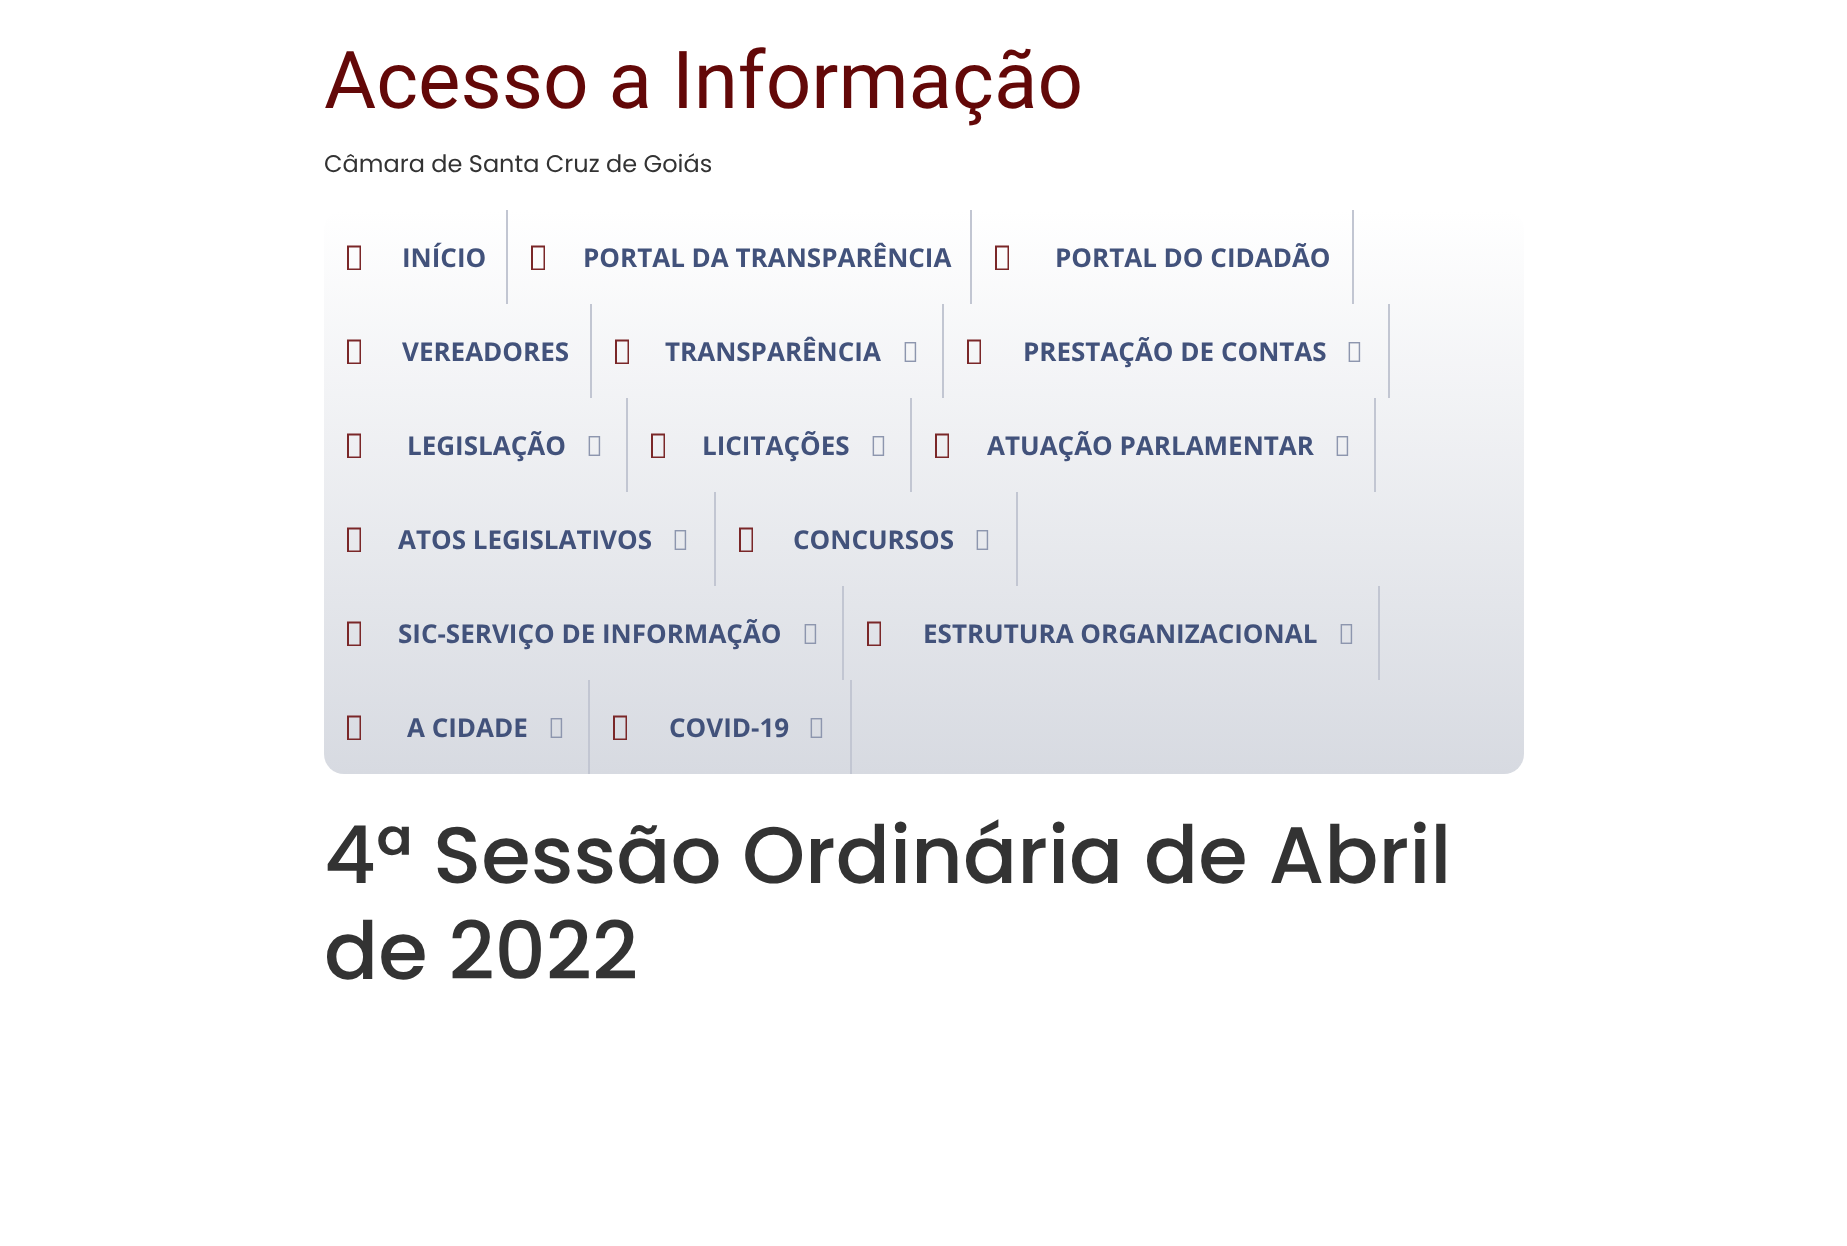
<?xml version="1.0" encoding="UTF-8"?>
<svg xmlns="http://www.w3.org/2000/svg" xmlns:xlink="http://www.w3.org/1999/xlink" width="1847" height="1246">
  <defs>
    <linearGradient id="g1" gradientUnits="userSpaceOnUse" x1="924" y1="210" x2="924" y2="774"><stop offset="0" stop-color="#ffffff" /><stop offset="1" stop-color="#d7dae1" /></linearGradient>
  </defs>
  <rect width="100%" height="100%" fill="#ffffff" />
  <rect x="324" y="210" width="1200" height="564" rx="20" fill="url(#g1)" />
  <rect x="506" y="210" width="2" height="94" fill="#c2c6d2" />
  <path d="M 347 270 v -24.5 h 14 v 24.5 z m 2 -1.5 h 10.5 v -21 h -10.5 z" fill="#7a2728" />
  <rect x="970" y="210" width="2" height="94" fill="#c2c6d2" />
  <path d="M 531 270 v -24.5 h 14 v 24.5 z m 2 -1.5 h 10.5 v -21 h -10.5 z" fill="#7a2728" />
  <rect x="1352" y="210" width="2" height="94" fill="#c2c6d2" />
  <path d="M 995 270 v -24.5 h 14 v 24.5 z m 2 -1.5 h 10.5 v -21 h -10.5 z" fill="#7a2728" />
  <rect x="590" y="304" width="2" height="94" fill="#c2c6d2" />
  <path d="M 347 364 v -24.5 h 14 v 24.5 z m 2 -1.5 h 10.5 v -21 h -10.5 z" fill="#7a2728" />
  <rect x="942" y="304" width="2" height="94" fill="#c2c6d2" />
  <path d="M 615 364 v -24.5 h 14 v 24.5 z m 2 -1.5 h 10.5 v -21 h -10.5 z" fill="#7a2728" />
  <image x="904" y="342" width="13" height="20" xlink:href="image1.png" />
  <rect x="1388" y="304" width="2" height="94" fill="#c2c6d2" />
  <path d="M 967 364 v -24.5 h 14 v 24.5 z m 2 -1.5 h 10.5 v -21 h -10.5 z" fill="#7a2728" />
  <image x="1348" y="342" width="13" height="20" xlink:href="image1.png" />
  <rect x="626" y="398" width="2" height="94" fill="#c2c6d2" />
  <path d="M 347 458 v -24.5 h 14 v 24.5 z m 2 -1.5 h 10.5 v -21 h -10.5 z" fill="#7a2728" />
  <image x="588" y="436" width="13" height="20" xlink:href="image2.png" />
  <rect x="910" y="398" width="2" height="94" fill="#c2c6d2" />
  <path d="M 651 458 v -24.5 h 14 v 24.5 z m 2 -1.5 h 10.5 v -21 h -10.5 z" fill="#7a2728" />
  <image x="872" y="436" width="13" height="20" xlink:href="image2.png" />
  <rect x="1374" y="398" width="2" height="94" fill="#c2c6d2" />
  <path d="M 935 458 v -24.5 h 14 v 24.5 z m 2 -1.5 h 10.5 v -21 h -10.5 z" fill="#7a2728" />
  <image x="1336" y="436" width="13" height="20" xlink:href="image2.png" />
  <rect x="714" y="492" width="2" height="94" fill="#c2c6d2" />
  <path d="M 347 552 v -24.5 h 14 v 24.5 z m 2 -1.5 h 10.5 v -21 h -10.5 z" fill="#7a2728" />
  <image x="674" y="530" width="13" height="20" xlink:href="image3.png" />
  <rect x="1016" y="492" width="2" height="94" fill="#c2c6d2" />
  <path d="M 739 552 v -24.5 h 14 v 24.5 z m 2 -1.5 h 10.5 v -21 h -10.5 z" fill="#7a2728" />
  <image x="976" y="530" width="13" height="20" xlink:href="image3.png" />
  <rect x="842" y="586" width="2" height="94" fill="#c2c6d2" />
  <path d="M 347 646 v -24.5 h 14 v 24.5 z m 2 -1.5 h 10.5 v -21 h -10.5 z" fill="#7a2728" />
  <image x="804" y="624" width="13" height="20" xlink:href="image4.png" />
  <rect x="1378" y="586" width="2" height="94" fill="#c2c6d2" />
  <path d="M 867 646 v -24.5 h 14 v 24.5 z m 2 -1.5 h 10.5 v -21 h -10.5 z" fill="#7a2728" />
  <image x="1340" y="624" width="13" height="20" xlink:href="image4.png" />
  <rect x="588" y="680" width="2" height="94" fill="#c2c6d2" />
  <path d="M 347 740 v -24.5 h 14 v 24.5 z m 2 -1.5 h 10.5 v -21 h -10.5 z" fill="#7a2728" />
  <image x="550" y="718" width="13" height="20" xlink:href="image5.png" />
  <rect x="850" y="680" width="2" height="94" fill="#c2c6d2" />
  <path d="M 613 740 v -24.5 h 14 v 24.5 z m 2 -1.5 h 10.5 v -21 h -10.5 z" fill="#7a2728" />
  <image x="810" y="718" width="13" height="20" xlink:href="image5.png" />
  <text x="324" y="108" style="font-family: Roboto; font-size: 80px; fill: #630808">Acesso a Informação</text>
  <text x="324" y="172" style="font-family: Poppins; font-size: 24px; fill: #333333">Câmara de Santa Cruz de Goiás</text>
  <text x="402" y="267" style="font-family: Open Sans; font-size: 26px; font-weight: bold; fill: #42527b">INÍCIO</text>
  <text x="583" y="267" style="font-family: Open Sans; font-size: 26px; font-weight: bold; fill: #42527b">PORTAL DA TRANSPARÊNCIA</text>
  <text x="1055" y="267" style="font-family: Open Sans; font-size: 26px; font-weight: bold; fill: #42527b">PORTAL DO CIDADÃO</text>
  <text x="402" y="361" style="font-family: Open Sans; font-size: 26px; font-weight: bold; fill: #42527b">VEREADORES</text>
  <text x="665" y="361" style="font-family: Open Sans; font-size: 26px; font-weight: bold; fill: #42527b">TRANSPARÊNCIA</text>
  <text x="1023" y="361" style="font-family: Open Sans; font-size: 26px; font-weight: bold; fill: #42527b">PRESTAÇÃO DE CONTAS</text>
  <text x="407" y="455" style="font-family: Open Sans; font-size: 26px; font-weight: bold; fill: #42527b">LEGISLAÇÃO</text>
  <text x="702" y="455" style="font-family: Open Sans; font-size: 26px; font-weight: bold; fill: #42527b">LICITAÇÕES</text>
  <text x="987" y="455" style="font-family: Open Sans; font-size: 26px; font-weight: bold; fill: #42527b">ATUAÇÃO PARLAMENTAR</text>
  <text x="398" y="549" style="font-family: Open Sans; font-size: 26px; font-weight: bold; fill: #42527b">ATOS LEGISLATIVOS</text>
  <text x="793" y="549" style="font-family: Open Sans; font-size: 26px; font-weight: bold; fill: #42527b">CONCURSOS</text>
  <text x="398" y="643" style="font-family: Open Sans; font-size: 26px; font-weight: bold; fill: #42527b">SIC-SERVIÇO DE INFORMAÇÃO</text>
  <text x="923" y="643" style="font-family: Open Sans; font-size: 26px; font-weight: bold; fill: #42527b">ESTRUTURA ORGANIZACIONAL</text>
  <text x="407" y="737" style="font-family: Open Sans; font-size: 26px; font-weight: bold; fill: #42527b">A CIDADE</text>
  <text x="669" y="737" style="font-family: Open Sans; font-size: 26px; font-weight: bold; fill: #42527b">COVID-19</text>
  <text x="324" y="883" style="font-family: Poppins; font-size: 80px; font-weight: 500; fill: #333333">4ª Sessão Ordinária de Abril</text>
  <text x="324" y="979" style="font-family: Poppins; font-size: 80px; font-weight: 500; fill: #333333">de 2022</text>
</svg>
